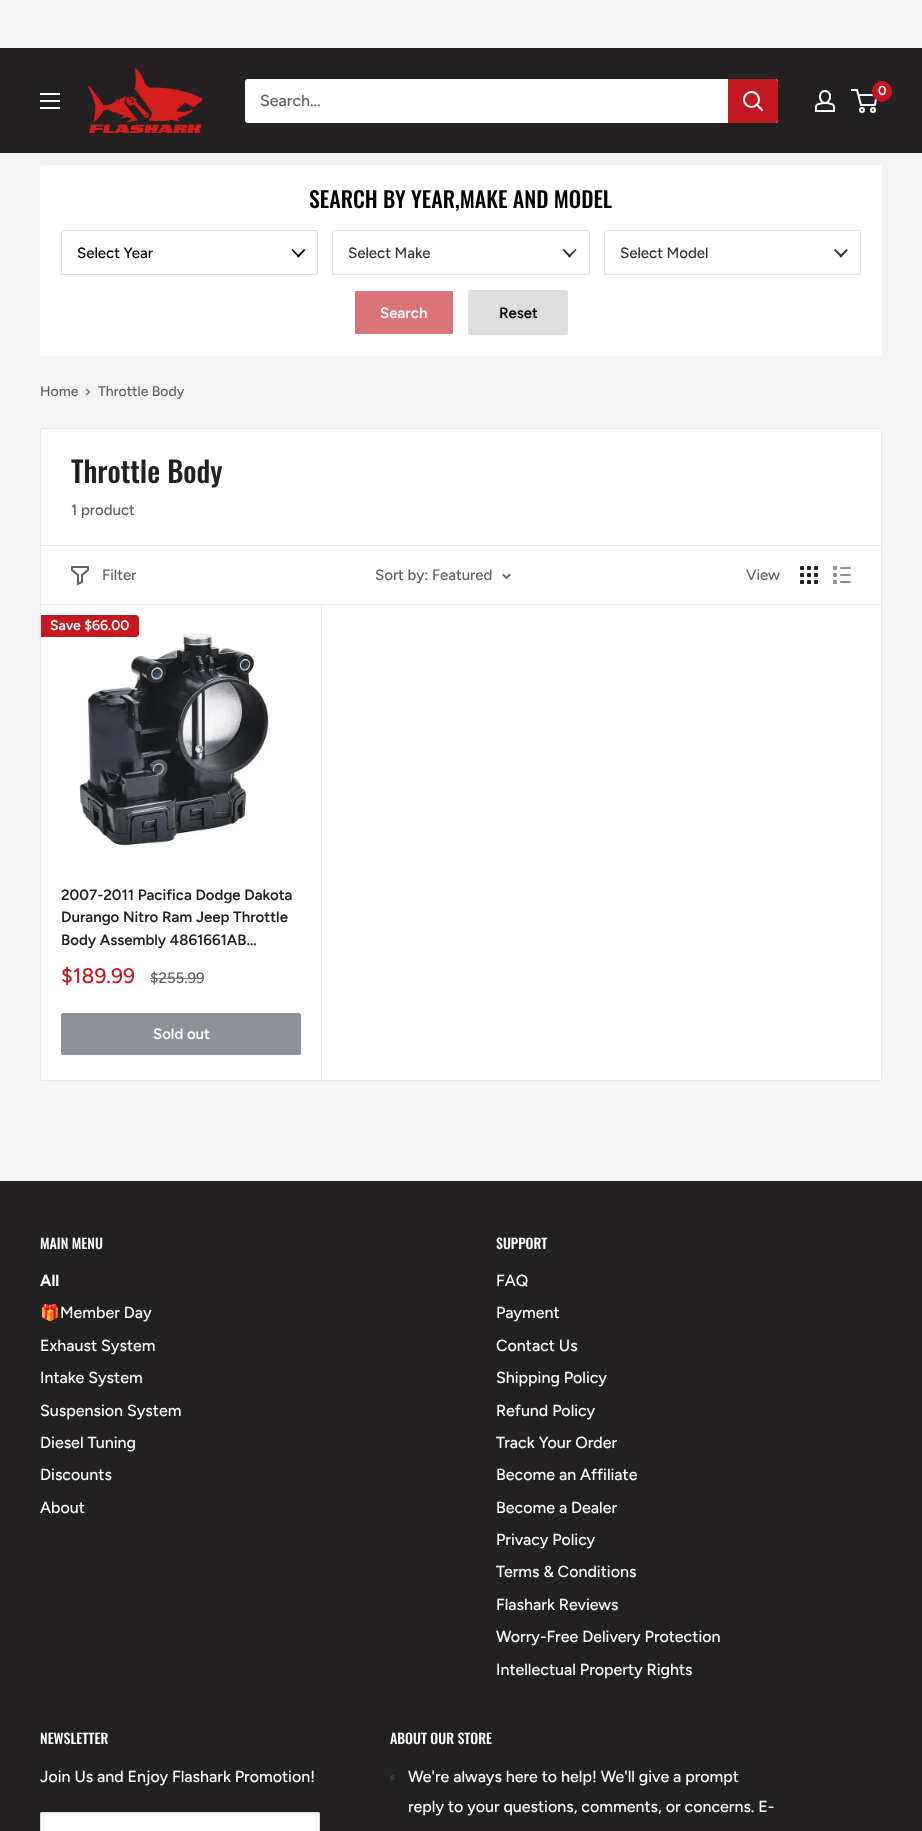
<?xml version="1.0" encoding="UTF-8"?>
<svg xmlns="http://www.w3.org/2000/svg" xmlns:xlink="http://www.w3.org/1999/xlink" width="922" height="1831">
  <rect width="100%" height="100%" fill="#f5f5f5" />
  <rect y="48" width="922" height="105" fill="#222021" />
  <image x="87" y="68" width="116" height="65" xlink:href="image1.png" />
  <image x="815" y="90" width="20" height="22" xlink:href="image2.png" />
  <circle cx="862" cy="110" r="2" fill="none" stroke="#ffffff" stroke-width="2" />
  <circle cx="873" cy="110" r="2" fill="none" stroke="#ffffff" stroke-width="2" />
  <path d="M 858.5 95 h 18 l -1.5 10 h -14 l -4 -15 h -6" fill="none" stroke="#ffffff" stroke-width="2" />
  <rect x="872" y="81" width="20" height="21" rx="10" fill="#c3181f" />
  <image x="40" y="93" width="20" height="16" xlink:href="image3.png" />
  <rect x="245" y="79" width="533" height="44" rx="3" fill="#ffffff" />
  <path d="M 728 79 h 47 c 1.5 0 3 1.5 3 3 v 38 c 0 1.5 -1.5 3 -3 3 h -47 z" fill="#c3181f" />
  <path d="M 762 110 l -5 -5" fill="none" stroke="#ffffff" stroke-width="2" stroke-linecap="square" />
  <circle cx="751.5" cy="99.5" r="7.5" fill="none" stroke="#ffffff" stroke-width="2" />
  <rect x="40" y="165" width="842" height="191" rx="3" fill="#ffffff" />
  <rect x="61.5" y="230.5" width="256" height="44" rx="1.5" fill="none" stroke="#dfdfdf" />
  <path d="M 304 249 l 1.5 1 l -7 7.5 l -1.5 -1.5 z" fill="#000000" />
  <path d="M 292.5 249 l 7 7 l -1 1.5 l -7 -7.5 z" fill="#000000" />
  <rect x="332.5" y="230.5" width="257" height="44" rx="1.5" fill="none" stroke="#e5e5e5" />
  <path d="M 575.5 249 l 1 1 l -7 7.5 l -1.5 -1.5 z" fill="#333333" />
  <path d="M 564 249 l 7 7 l -1.5 1.5 l -7 -7.5 z" fill="#333333" />
  <rect x="604.5" y="230.5" width="256" height="44" rx="1.5" fill="none" stroke="#e5e5e5" />
  <path d="M 846.5 249 l 1.5 1 l -7 7.5 l -1.5 -1.5 z" fill="#333333" />
  <path d="M 835.5 249 l 7 7 l -1.5 1.5 l -7 -7.5 z" fill="#333333" />
  <rect x="354.5" y="290.5" width="99" height="44" rx="1.5" fill="#db7479" stroke="#ffffff" />
  <rect x="468.5" y="290.5" width="99" height="44" rx="1.5" fill="#dddddd" stroke="#dddddd" />
  <path d="M 86.5 389.5 l 3 2.5 l -3 2.5" fill="none" stroke="#616161" stroke-width="1.3" stroke-linecap="square" />
  <rect x="40.5" y="428.5" width="841" height="652" rx="2.5" fill="#ffffff" stroke="#e8e8e8" />
  <rect x="41" y="545" width="840" height="1" fill="#e8e8e8" />
  <rect x="321" y="604" width="1" height="476" fill="#e8e8e8" />
  <rect x="41" y="604" width="840" height="1" fill="#e8e8e8" />
  <path d="M 88 570 l -6 5 v 7 l -4 2 v -9 l -6 -5 v -3 h 16 z" fill="none" stroke="#616161" stroke-width="2" stroke-linecap="square" />
  <path d="M 509.5 575 l -3 3 l -3 -3" fill="none" stroke="#616161" stroke-width="1.9" stroke-linecap="square" />
  <image x="800" y="566" width="18" height="18" xlink:href="image4.png" />
  <image x="833" y="566" width="18" height="18" xlink:href="image5.png" />
  <image x="79" y="633" width="191" height="213" xlink:href="image6.png" />
  <path d="M 41 615 h 95 c 1.5 0 3 1.5 3 3 v 16 c 0 1.5 -1.5 3 -3 3 h -95 z" fill="#c3181f" />
  <rect x="61.5" y="1013.5" width="239" height="41" rx="1.5" fill="#8a9297" stroke="#8a9297" />
  <rect y="1181" width="922" height="650" fill="#222021" />
  <rect x="40" y="1812" width="280" height="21" rx="2" fill="#ffffff" />
  <path d="M 42 1814 h 276 c 1 0 1 0 1 1 c 0 -1 0 -2 -1 -2 h -276 h -1 v 2 c 0 -1 0 -1 1 -1 z" fill="#f9f9f9" />
  <rect x="40.5" y="1812.5" width="279" height="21" rx="1.5" fill="none" stroke="#dbdbdb" />
  <circle cx="392.5" cy="1777.5" r="2.5" fill="#3b3a3b" />
  <text x="878" y="95" style="font-family: Figtree; font-size: 13px; font-weight: 600; fill: #ffffff">0</text>
  <text x="260" y="106" style="font-family: Figtree; font-size: 16px; font-weight: 500; fill: #616161">Search...</text>
  <text x="309" y="208" style="font-family: Oswald; font-size: 22px; font-weight: 500; fill: #000000">SEARCH BY YEAR,MAKE AND MODEL</text>
  <text x="77" y="258" style="font-family: Figtree; font-size: 15px; font-weight: 500; fill: #000000">Select Year</text>
  <text x="348" y="258" style="font-family: Figtree; font-size: 15px; font-weight: 500; fill: #333333">Select Make</text>
  <text x="620" y="258" style="font-family: Figtree; font-size: 15px; font-weight: 500; fill: #333333">Select Model</text>
  <text x="380" y="318" style="font-family: Figtree; font-size: 15px; font-weight: 600; fill: #ffffff">Search</text>
  <text x="499" y="318" style="font-family: Figtree; font-size: 15px; font-weight: 600; fill: #000000">Reset</text>
  <text x="40" y="396" style="font-family: Figtree; font-size: 14px; font-weight: 500; fill: #616161">Home</text>
  <text x="98" y="396" style="font-family: Figtree; font-size: 14px; font-weight: 500; fill: #616161">Throttle Body</text>
  <text x="71" y="483" style="font-family: Oswald; font-size: 29px; font-weight: 500; fill: #222021">Throttle Body</text>
  <text x="71" y="515" style="font-family: Figtree; font-size: 15px; font-weight: 500; fill: #616161">1 product</text>
  <text x="102" y="580" style="font-family: Figtree; font-size: 15px; font-weight: 500; fill: #616161">Filter</text>
  <text x="375" y="580" style="font-family: Figtree; font-size: 15px; font-weight: 500; fill: #616161">Sort by: Featured</text>
  <text x="746" y="580" style="font-family: Figtree; font-size: 15px; font-weight: 500; fill: #616161">View</text>
  <text x="50" y="630" style="font-family: Figtree; font-size: 14px; font-weight: 600; fill: #ffffff">Save $66.00</text>
  <text x="61" y="900" style="font-family: Figtree; font-size: 15px; font-weight: 600; fill: #222021">2007-2011 Pacifica Dodge Dakota</text>
  <text x="61" y="922" style="font-family: Figtree; font-size: 15px; font-weight: 600; fill: #222021">Durango Nitro Ram Jeep Throttle</text>
  <text x="61" y="945" style="font-family: Figtree; font-size: 15px; font-weight: 600; fill: #222021">Body Assembly 4861661AB…</text>
  <text x="61" y="983" style="font-family: Figtree; font-size: 21px; font-weight: 500; fill: #c3181f">$189.99</text>
  <text x="150" y="983" style="font-family: Figtree; font-size: 15px; font-weight: 500; fill: #616161">$255.99</text>
  <rect x="150" y="978" width="54" height="1" fill="#616161" fill-opacity="0.7" />
  <text x="153" y="1039" style="font-family: Figtree; font-size: 15px; font-weight: 600; fill: #ffffff">Sold out</text>
  <text x="40" y="1249" style="font-family: Oswald; font-size: 14px; font-weight: 500; fill: #ffffff">MAIN MENU</text>
  <text x="40" y="1286" style="font-family: Figtree; font-size: 16px; font-weight: bold; fill: #ffffff">All</text>
  <text x="40" y="1318" style="font-family: Noto Color Emoji; font-size: 16px; fill: #ffffff">🎁</text>
  <text x="60" y="1318" style="font-family: Figtree; font-size: 16px; font-weight: 500; fill: #ffffff">Member Day</text>
  <text x="40" y="1351" style="font-family: Figtree; font-size: 16px; font-weight: 500; fill: #ffffff">Exhaust System</text>
  <text x="40" y="1383" style="font-family: Figtree; font-size: 16px; font-weight: 500; fill: #ffffff">Intake System</text>
  <text x="40" y="1416" style="font-family: Figtree; font-size: 16px; font-weight: 500; fill: #ffffff">Suspension System</text>
  <text x="40" y="1448" style="font-family: Figtree; font-size: 16px; font-weight: 500; fill: #ffffff">Diesel Tuning</text>
  <text x="40" y="1480" style="font-family: Figtree; font-size: 16px; font-weight: 500; fill: #ffffff">Discounts</text>
  <text x="40" y="1513" style="font-family: Figtree; font-size: 16px; font-weight: 500; fill: #ffffff">About</text>
  <text x="496" y="1249" style="font-family: Oswald; font-size: 14px; font-weight: 500; fill: #ffffff">SUPPORT</text>
  <text x="496" y="1286" style="font-family: Figtree; font-size: 16px; font-weight: 500; fill: #ffffff">FAQ</text>
  <text x="496" y="1318" style="font-family: Figtree; font-size: 16px; font-weight: 500; fill: #ffffff">Payment</text>
  <text x="496" y="1351" style="font-family: Figtree; font-size: 16px; font-weight: 500; fill: #ffffff">Contact Us</text>
  <text x="496" y="1383" style="font-family: Figtree; font-size: 16px; font-weight: 500; fill: #ffffff">Shipping Policy</text>
  <text x="496" y="1416" style="font-family: Figtree; font-size: 16px; font-weight: 500; fill: #ffffff">Refund Policy</text>
  <text x="496" y="1448" style="font-family: Figtree; font-size: 16px; font-weight: 500; fill: #ffffff">Track Your Order</text>
  <text x="496" y="1480" style="font-family: Figtree; font-size: 16px; font-weight: 500; fill: #ffffff">Become an Affiliate</text>
  <text x="496" y="1513" style="font-family: Figtree; font-size: 16px; font-weight: 500; fill: #ffffff">Become a Dealer</text>
  <text x="496" y="1545" style="font-family: Figtree; font-size: 16px; font-weight: 500; fill: #ffffff">Privacy Policy</text>
  <text x="496" y="1577" style="font-family: Figtree; font-size: 16px; font-weight: 500; fill: #ffffff">Terms &amp; Conditions</text>
  <text x="496" y="1610" style="font-family: Figtree; font-size: 16px; font-weight: 500; fill: #ffffff">Flashark Reviews</text>
  <text x="496" y="1642" style="font-family: Figtree; font-size: 16px; font-weight: 500; fill: #ffffff">Worry-Free Delivery Protection</text>
  <text x="496" y="1675" style="font-family: Figtree; font-size: 16px; font-weight: 500; fill: #ffffff">Intellectual Property Rights</text>
  <text x="40" y="1744" style="font-family: Oswald; font-size: 14px; font-weight: 500; fill: #ffffff">NEWSLETTER</text>
  <text x="40" y="1782" style="font-family: Figtree; font-size: 16px; font-weight: 500; fill: #ffffff">Join Us and Enjoy Flashark Promotion!</text>
  <text x="390" y="1744" style="font-family: Oswald; font-size: 14px; font-weight: 500; fill: #ffffff">ABOUT OUR STORE</text>
  <text x="408" y="1782" style="font-family: Figtree; font-size: 16px; font-weight: 500; fill: #ffffff">We're always here to help! We'll give a prompt</text>
  <text x="408" y="1812" style="font-family: Figtree; font-size: 16px; font-weight: 500; fill: #ffffff">reply to your questions, comments, or concerns. E-</text>
</svg>
